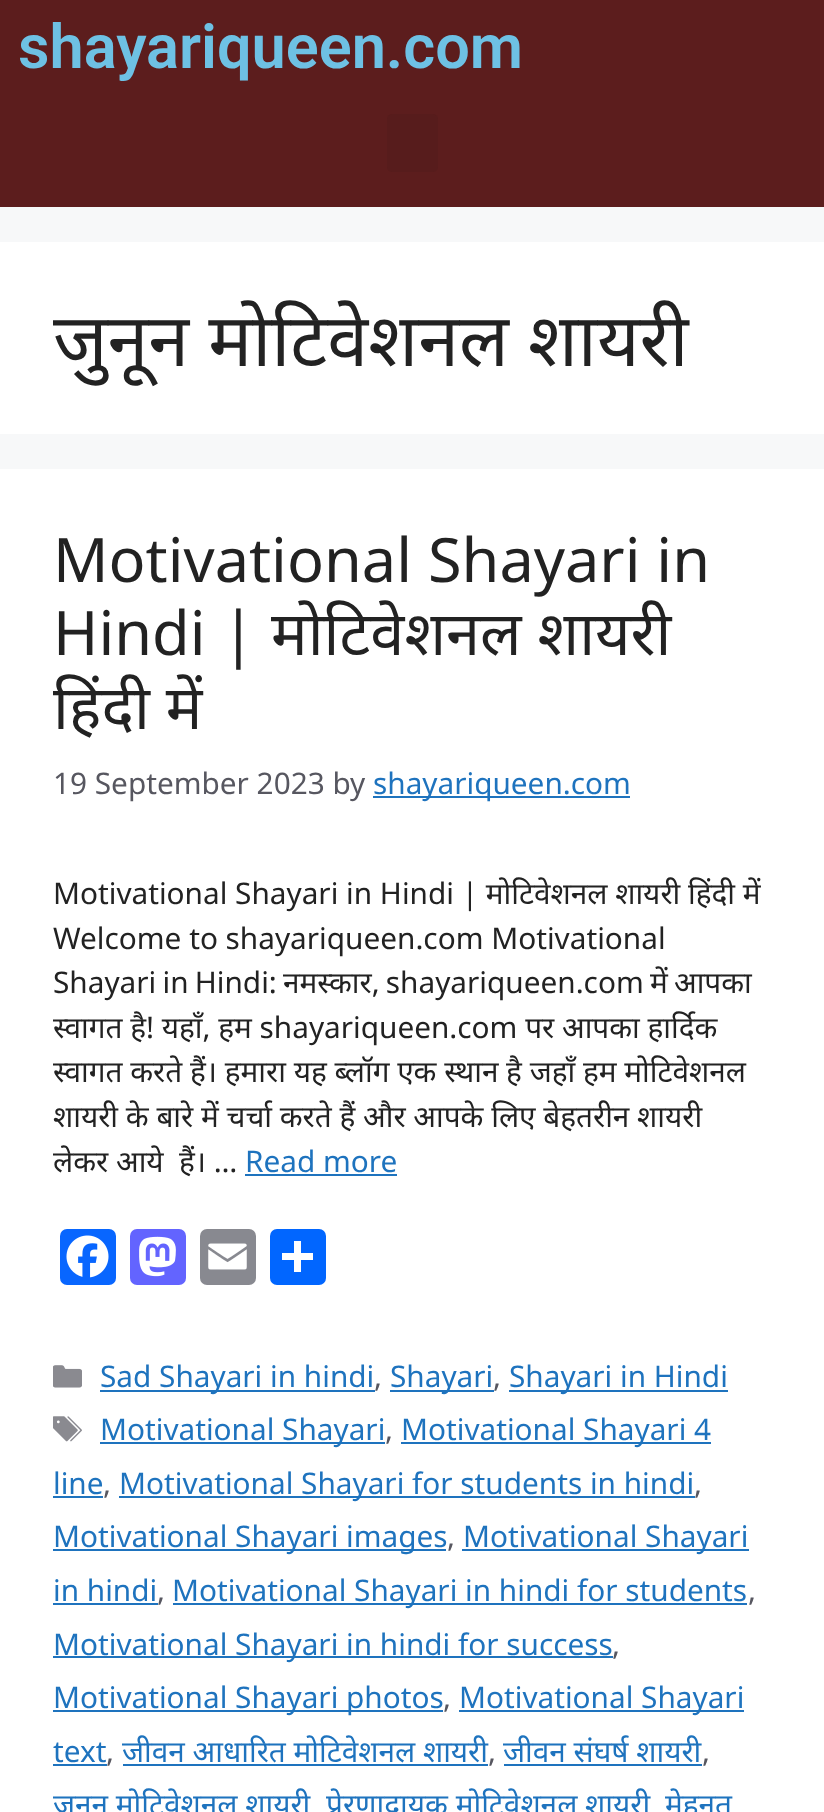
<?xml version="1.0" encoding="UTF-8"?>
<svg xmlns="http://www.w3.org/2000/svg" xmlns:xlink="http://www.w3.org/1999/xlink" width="824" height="1812">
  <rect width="100%" height="100%" fill="#f7f8f9" />
  <rect width="824" height="207" fill="#5c1d1d" />
  <rect x="387" y="114" width="51" height="58" rx="5" fill="#571c1c" />
  <rect y="242" width="824" height="192" fill="#ffffff" />
  <rect y="469" width="824" height="1343" fill="#ffffff" />
  <rect x="373" y="796" width="257" height="2" fill="#1e73be" />
  <rect x="245" y="1174" width="152" height="2" fill="#1e73be" />
  <rect x="60" y="1229" width="56" height="56" rx="7" fill="#0866ff" />
  <image x="66" y="1235" width="43" height="43" xlink:href="image1.png" />
  <rect x="130" y="1229" width="56" height="56" rx="7" fill="#6364ff" />
  <image x="139" y="1236" width="37" height="41" xlink:href="image2.png" />
  <rect x="200" y="1229" width="56" height="56" rx="7" fill="#888990" />
  <image x="208" y="1243" width="39" height="27" xlink:href="image3.png" />
  <rect x="270" y="1229" width="56" height="56" rx="7" fill="#0166ff" />
  <rect x="294" y="1241" width="7" height="31" fill="#ffffff" />
  <rect x="282" y="1253" width="31" height="7" fill="#ffffff" />
  <image x="53" y="1365" width="29" height="23" xlink:href="image4.png" />
  <rect x="100" y="1390" width="275" height="2" fill="#1e73be" />
  <rect x="390" y="1390" width="104" height="2" fill="#1e73be" />
  <rect x="509" y="1390" width="219" height="2" fill="#1e73be" />
  <image x="53" y="1416" width="29" height="26" xlink:href="image5.png" />
  <rect x="100" y="1442" width="285" height="2" fill="#1e73be" />
  <rect x="401" y="1442" width="310" height="2" fill="#1e73be" />
  <rect x="53" y="1496" width="50" height="2" fill="#1e73be" />
  <rect x="119" y="1496" width="576" height="2" fill="#1e73be" />
  <rect x="53" y="1549" width="393" height="2" fill="#1e73be" />
  <rect x="462" y="1549" width="287" height="2" fill="#1e73be" />
  <rect x="53" y="1603" width="105" height="2" fill="#1e73be" />
  <rect x="173" y="1603" width="574" height="2" fill="#1e73be" />
  <rect x="53" y="1656" width="560" height="2" fill="#1e73be" />
  <rect x="53" y="1710" width="390" height="2" fill="#1e73be" />
  <rect x="459" y="1710" width="285" height="2" fill="#1e73be" />
  <rect x="53" y="1764" width="54" height="2" fill="#1e73be" />
  <rect x="123" y="1764" width="365" height="2" fill="#1e73be" />
  <rect x="504" y="1764" width="198" height="2" fill="#1e73be" />
  <text x="18" y="68" style="font-family: Roboto; font-size: 61.25px; font-weight: 600; fill: #6ec1e4">shayariqueen.com</text>
  <text x="53" y="366" style="font-family: Noto Sans; font-size: 73.5px; fill: #222222">जुनून मोटिवेशनल शायरी</text>
  <text x="53" y="582" style="font-family: Noto Sans; font-size: 61.25px; fill: #222222">Motivational Shayari in</text>
  <text x="53" y="655" style="font-family: Noto Sans; font-size: 61.25px; fill: #222222">Hindi | मोटिवेशनल शायरी</text>
  <text x="53" y="729" style="font-family: Noto Sans; font-size: 61.25px; fill: #222222">हिंदी में</text>
  <text x="53" y="794" style="font-family: Noto Sans; font-size: 29.75px; fill: #575760">19 September 2023 by</text>
  <text x="373" y="794" style="font-family: Noto Sans; font-size: 29.75px; fill: #1e73be">shayariqueen.com</text>
  <text x="53" y="904" style="font-family: Noto Sans; font-size: 29.75px; fill: #222222">Motivational Shayari in Hindi | मोटिवेशनल शायरी हिंदी में</text>
  <text x="53" y="949" style="font-family: Noto Sans; font-size: 29.75px; fill: #222222">Welcome to shayariqueen.com Motivational</text>
  <text x="53" y="993" word-spacing="-1.5" style="font-family: Noto Sans; font-size: 29.75px; fill: #222222">Shayari in Hindi: नमस्कार, shayariqueen.com में आपका</text>
  <text x="53" y="1038" style="font-family: Noto Sans; font-size: 29.75px; fill: #222222">स्वागत है! यहाँ, हम shayariqueen.com पर आपका हार्दिक</text>
  <text x="53" y="1082" style="font-family: Noto Sans; font-size: 29.75px; fill: #222222">स्वागत करते हैं। हमारा यह ब्लॉग एक स्थान है जहाँ हम मोटिवेशनल</text>
  <text x="53" y="1127" style="font-family: Noto Sans; font-size: 29.75px; fill: #222222">शायरी के बारे में चर्चा करते हैं और आपके लिए बेहतरीन शायरी</text>
  <text x="53" y="1172" style="font-family: Noto Sans; font-size: 29.75px; fill: #222222" xml:space="preserve">लेकर आये  हैं। …</text>
  <text x="245" y="1172" style="font-family: Noto Sans; font-size: 29.75px; fill: #1e73be">Read more</text>
  <text x="100" y="1387" style="font-family: Noto Sans; font-size: 29.75px; fill: #1e73be">Sad Shayari in hindi</text>
  <text x="374" y="1387" style="font-family: Noto Sans; font-size: 29.75px; fill: #575760">,</text>
  <text x="390" y="1387" style="font-family: Noto Sans; font-size: 29.75px; fill: #1e73be">Shayari</text>
  <text x="493" y="1387" style="font-family: Noto Sans; font-size: 29.75px; fill: #575760">,</text>
  <text x="509" y="1387" style="font-family: Noto Sans; font-size: 29.75px; fill: #1e73be">Shayari in Hindi</text>
  <text x="100" y="1440" style="font-family: Noto Sans; font-size: 29.75px; fill: #1e73be">Motivational Shayari</text>
  <text x="385" y="1440" style="font-family: Noto Sans; font-size: 29.75px; fill: #575760">,</text>
  <text x="401" y="1440" style="font-family: Noto Sans; font-size: 29.75px; fill: #1e73be">Motivational Shayari 4</text>
  <text x="53" y="1494" style="font-family: Noto Sans; font-size: 29.75px; fill: #1e73be">line</text>
  <text x="103" y="1494" style="font-family: Noto Sans; font-size: 29.75px; fill: #575760">,</text>
  <text x="119" y="1494" style="font-family: Noto Sans; font-size: 29.75px; fill: #1e73be">Motivational Shayari for students in hindi</text>
  <text x="694" y="1494" style="font-family: Noto Sans; font-size: 29.75px; fill: #575760">,</text>
  <text x="53" y="1547" style="font-family: Noto Sans; font-size: 29.75px; fill: #1e73be">Motivational Shayari images</text>
  <text x="447" y="1547" style="font-family: Noto Sans; font-size: 29.75px; fill: #575760">,</text>
  <text x="463" y="1547" style="font-family: Noto Sans; font-size: 29.75px; fill: #1e73be">Motivational Shayari</text>
  <text x="53" y="1601" style="font-family: Noto Sans; font-size: 29.75px; fill: #1e73be">in hindi</text>
  <text x="157" y="1601" style="font-family: Noto Sans; font-size: 29.75px; fill: #575760">,</text>
  <text x="172" y="1601" style="font-family: Noto Sans; font-size: 29.75px; fill: #1e73be">Motivational Shayari in hindi for students</text>
  <text x="748" y="1601" style="font-family: Noto Sans; font-size: 29.75px; fill: #575760">,</text>
  <text x="53" y="1655" style="font-family: Noto Sans; font-size: 29.75px; fill: #1e73be">Motivational Shayari in hindi for success</text>
  <text x="612" y="1655" style="font-family: Noto Sans; font-size: 29.75px; fill: #575760">,</text>
  <text x="53" y="1708" style="font-family: Noto Sans; font-size: 29.75px; fill: #1e73be">Motivational Shayari photos</text>
  <text x="443" y="1708" style="font-family: Noto Sans; font-size: 29.75px; fill: #575760">,</text>
  <text x="459" y="1708" style="font-family: Noto Sans; font-size: 29.75px; fill: #1e73be">Motivational Shayari</text>
  <text x="53" y="1762" style="font-family: Noto Sans; font-size: 29.75px; fill: #1e73be">text</text>
  <text x="106" y="1762" style="font-family: Noto Sans; font-size: 29.75px; fill: #575760">,</text>
  <text x="122" y="1762" style="font-family: Noto Sans; font-size: 29.75px; fill: #1e73be">जीवन आधारित मोटिवेशनल शायरी</text>
  <text x="488" y="1762" style="font-family: Noto Sans; font-size: 29.75px; fill: #575760">,</text>
  <text x="503" y="1762" style="font-family: Noto Sans; font-size: 29.75px; fill: #1e73be">जीवन संघर्ष शायरी</text>
  <text x="702" y="1762" style="font-family: Noto Sans; font-size: 29.75px; fill: #575760">,</text>
  <text x="53" y="1815" style="font-family: Noto Sans; font-size: 29.75px; fill: #1e73be">जुनून मोटिवेशनल शायरी</text>
  <text x="326" y="1815" style="font-family: Noto Sans; font-size: 29.75px; fill: #1e73be">प्रेरणादायक मोटिवेशनल शायरी</text>
  <text x="665" y="1815" style="font-family: Noto Sans; font-size: 29.75px; fill: #1e73be">मेहनत</text>
</svg>
